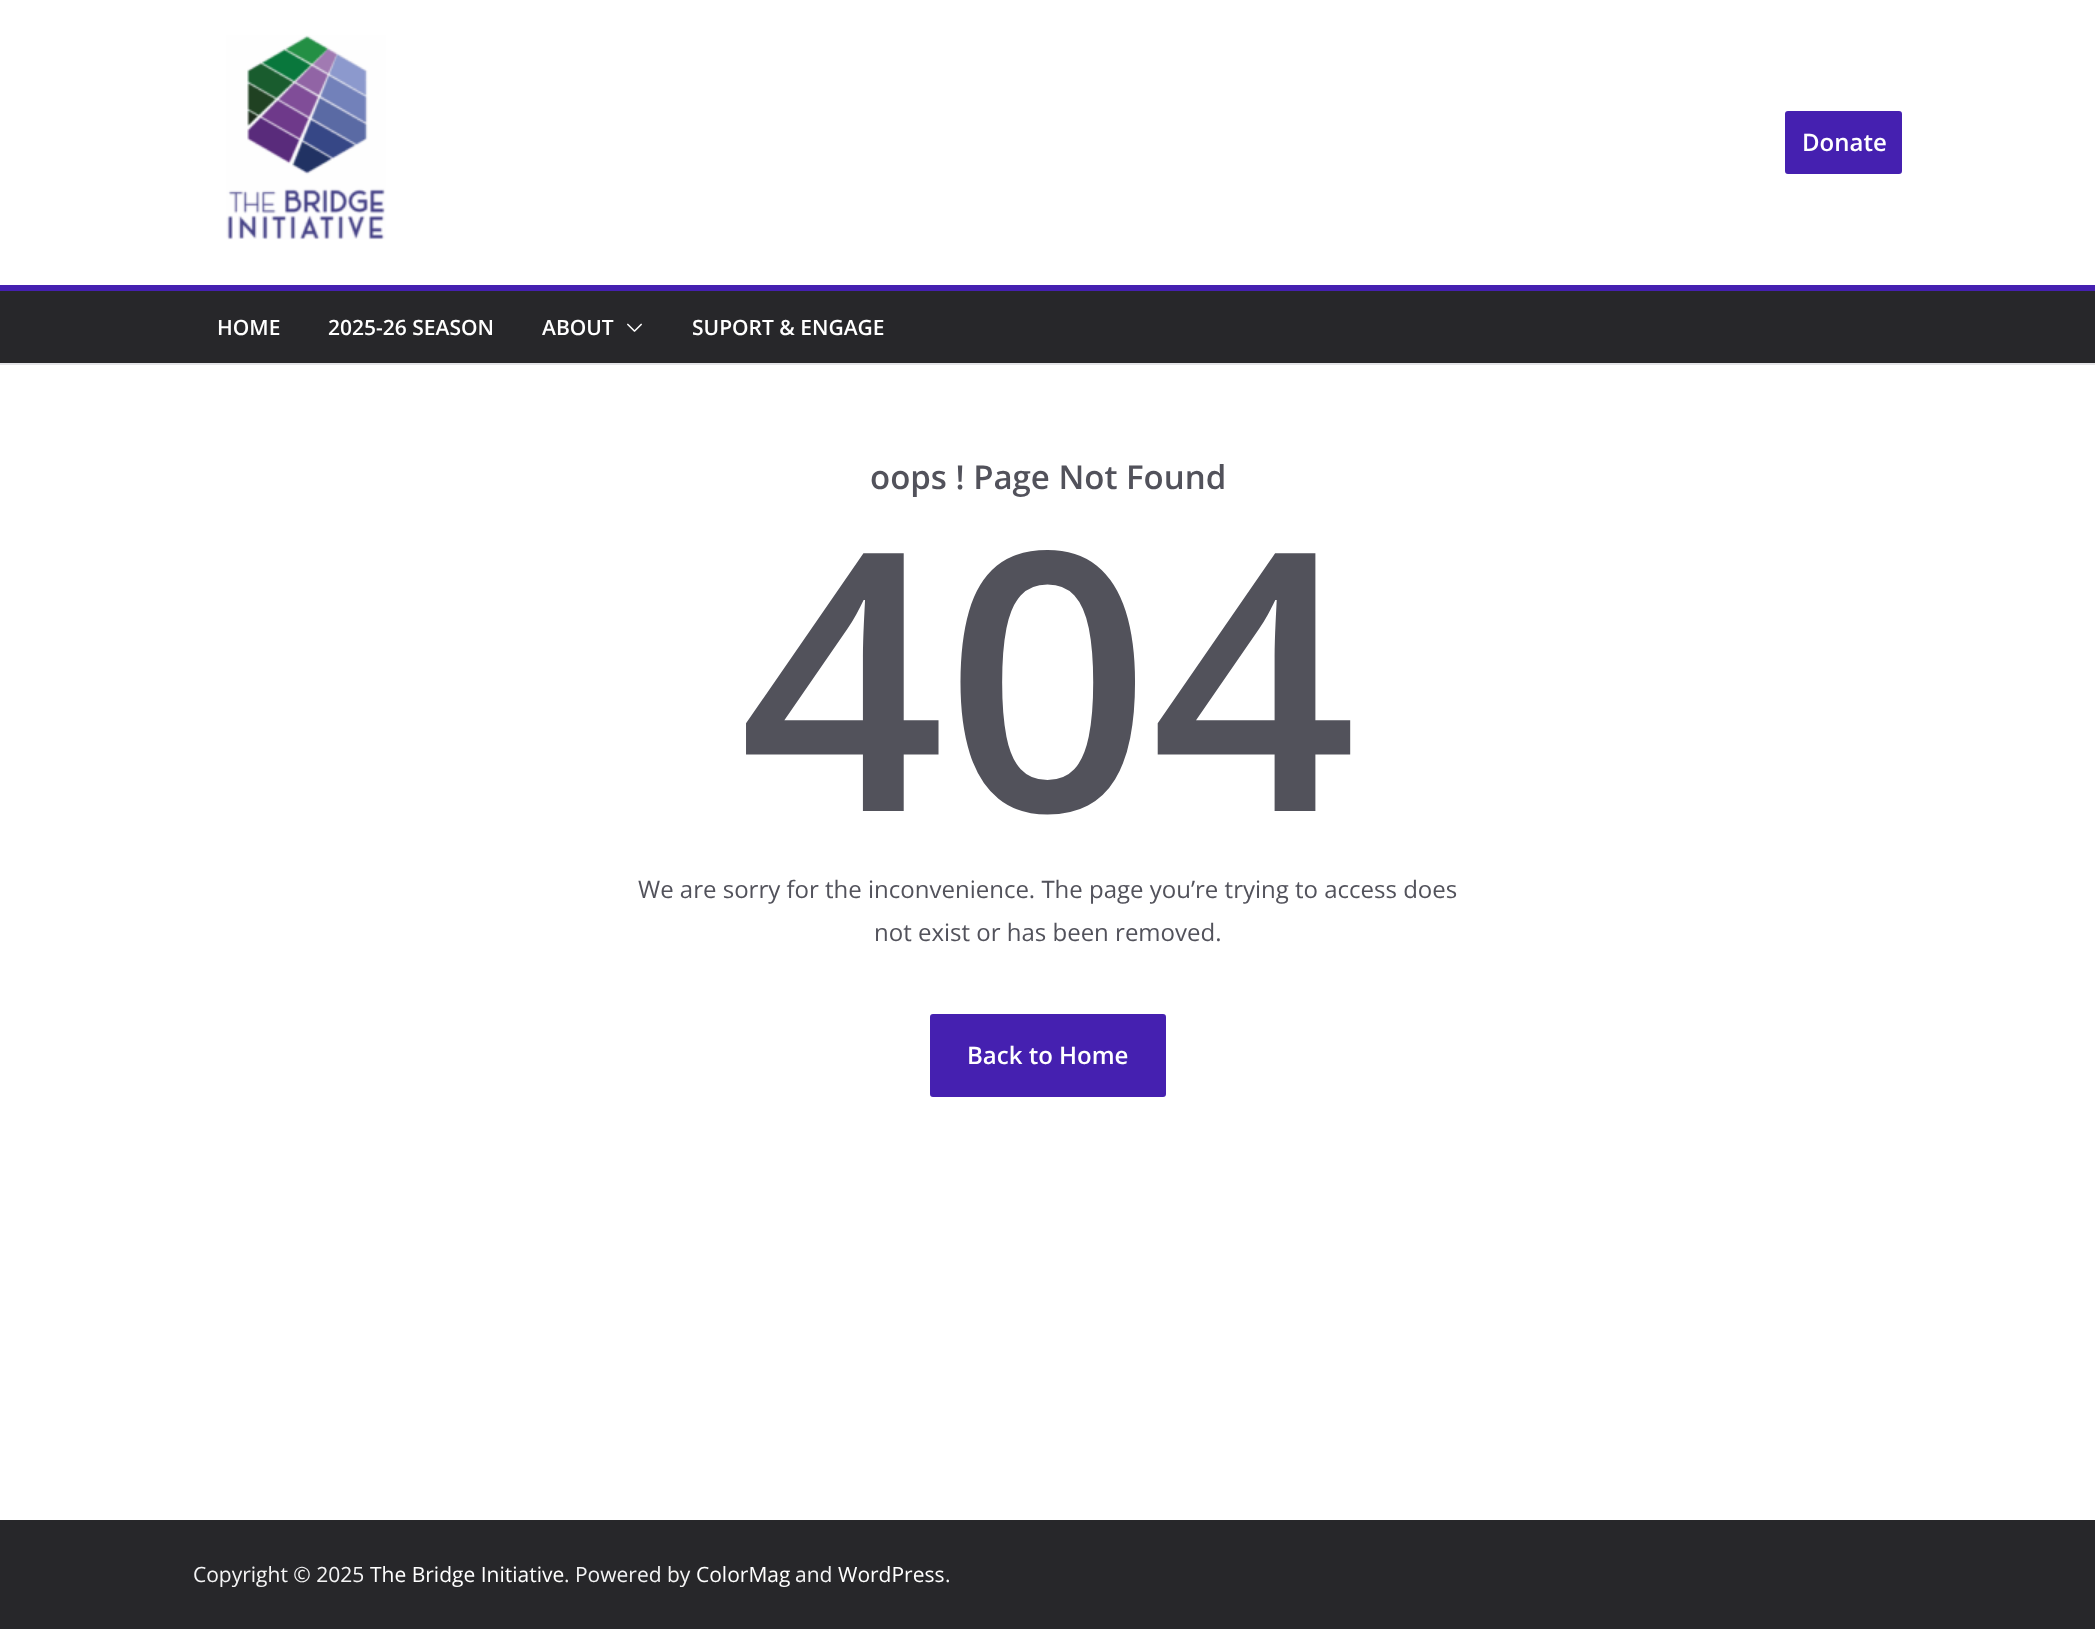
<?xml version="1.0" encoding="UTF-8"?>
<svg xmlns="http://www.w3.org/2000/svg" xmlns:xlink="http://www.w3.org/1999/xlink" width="2095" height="1629">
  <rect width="100%" height="100%" fill="#e4e4e7" />
  <rect width="2095" height="285" fill="#ffffff" />
  <image x="226" y="35" width="160" height="205" xlink:href="image1.png" />
  <rect x="1786" y="112" width="115" height="61" rx="2" fill="#4520b0" stroke="#4520b0" stroke-width="2" />
  <rect y="291" width="2095" height="72" fill="#27272a" />
  <rect y="285" width="2095" height="6" fill="#4520b0" />
  <image x="627" y="323" width="15" height="9" xlink:href="image2.png" />
  <rect y="365" width="2095" height="1155" fill="#ffffff" />
  <rect x="931" y="1015" width="234" height="81" rx="2" fill="#4520b0" stroke="#4520b0" stroke-width="2" />
  <rect y="1520" width="2095" height="109" fill="#27272a" />
  <text x="1802" y="151" style="font-family: Open Sans; font-size: 24px; font-weight: 600; fill: #ffffff">Donate</text>
  <text x="217" y="335" style="font-family: Open Sans; font-size: 21px; font-weight: 600; fill: #ffffff">HOME</text>
  <text x="328" y="335" style="font-family: Open Sans; font-size: 21px; font-weight: 600; fill: #ffffff">2025-26 SEASON</text>
  <text x="542" y="335" style="font-family: Open Sans; font-size: 21px; font-weight: 600; fill: #ffffff">ABOUT</text>
  <text x="692" y="335" style="font-family: Open Sans; font-size: 21px; font-weight: 600; fill: #ffffff">SUPORT &amp; ENGAGE</text>
  <text x="870" y="489" style="font-family: Open Sans; font-size: 33px; font-weight: 600; fill: #52525b">oops ! Page Not Found</text>
  <text x="739" y="811" style="font-family: Open Sans; font-size: 360px; font-weight: 600; fill: #52525b">404</text>
  <text x="638" y="898" style="font-family: Open Sans; font-size: 24px; fill: #52525b">We are sorry for the inconvenience. The page you’re trying to access does</text>
  <text x="874" y="941" style="font-family: Open Sans; font-size: 24px; fill: #52525b">not exist or has been removed.</text>
  <text x="967" y="1064" style="font-family: Open Sans; font-size: 24px; font-weight: 600; fill: #ffffff">Back to Home</text>
  <text x="193" y="1582" style="font-family: Open Sans; font-size: 21px; fill: #f4f4f5">Copyright © 2025</text>
  <text x="370" y="1582" style="font-family: Open Sans; font-size: 21px; fill: #ffffff">The Bridge Initiative</text>
  <text x="564" y="1582" style="font-family: Open Sans; font-size: 21px; fill: #f4f4f5">. Powered by</text>
  <text x="696" y="1582" style="font-family: Open Sans; font-size: 21px; fill: #ffffff">ColorMag</text>
  <text x="795" y="1582" style="font-family: Open Sans; font-size: 21px; fill: #f4f4f5">and</text>
  <text x="838" y="1582" style="font-family: Open Sans; font-size: 21px; fill: #ffffff">WordPress</text>
  <text x="945" y="1582" style="font-family: Open Sans; font-size: 21px; fill: #f4f4f5">.</text>
</svg>
